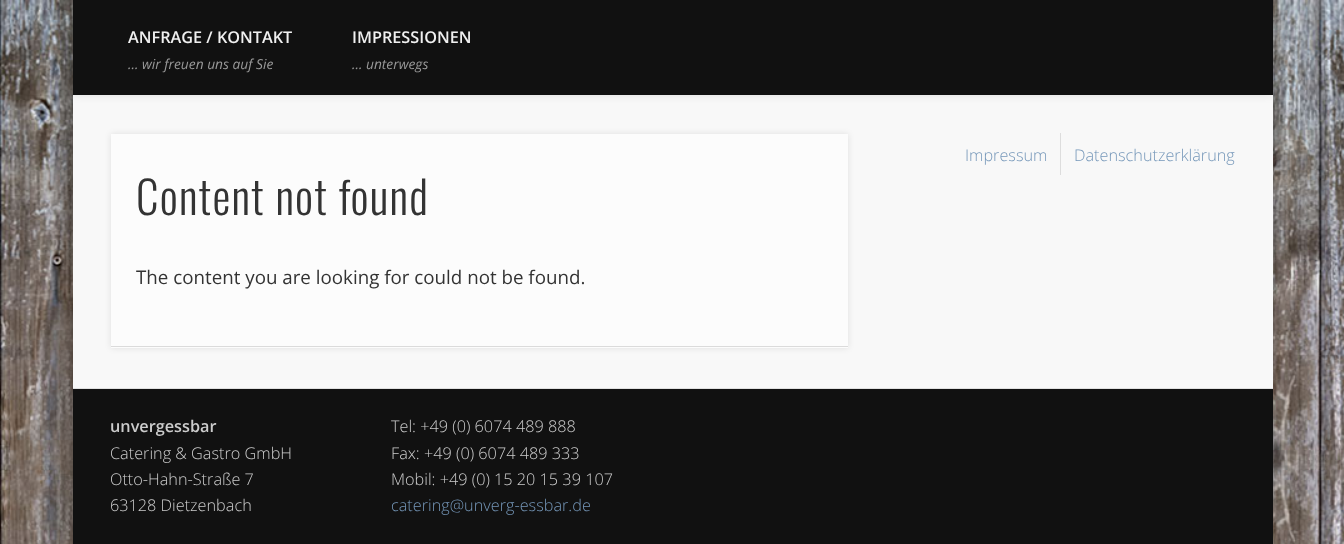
<?xml version="1.0" encoding="UTF-8"?>
<svg xmlns="http://www.w3.org/2000/svg" xmlns:xlink="http://www.w3.org/1999/xlink" width="1344" height="544">
  <defs>
    <clipPath id="clip1"><rect x="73" y="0" width="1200" height="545" /></clipPath>
  </defs>
  <rect width="100%" height="100%" fill="#ffffff" />
  <image x="0" y="0" width="1344" height="544" xlink:href="image1.png" />
  <rect x="73" y="-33" width="1200" height="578" fill="#000000" fill-opacity="0.4" filter="blur(11px)" />
  <rect x="73" y="95" width="1200" height="293" fill="#f8f8f8" />
  <g clip-path="url(#clip1)">
    <rect x="73" y="-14" width="1200" height="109" fill="#000000" fill-opacity="0.1" filter="blur(4.5px)" />
  </g>
  <rect x="73" width="1200" height="95" fill="#111111" />
  <rect x="1060" y="133" width="1" height="42" fill="#dddddd" />
  <rect x="111" y="134" width="737" height="214" fill="#000000" fill-opacity="0.1" filter="blur(3px)" />
  <rect x="111" y="134" width="737" height="214" fill="#fcfcfc" />
  <rect x="111" y="346" width="737" height="1" fill="#dbdbdb" />
  <rect x="73" y="389" width="1200" height="155" fill="#111111" />
  <rect x="73" y="388" width="1200" height="1" fill="#e0e0e0" />
  <text x="128" y="43" style="font-family: Open Sans; font-size: 16.25px; font-weight: 600; fill: #f0f0f0">ANFRAGE / KONTAKT</text>
  <text x="128" y="69" style="font-family: Open Sans; font-size: 13.75px; font-style: italic; fill: #999999">… wir freuen uns auf Sie</text>
  <text x="352" y="43" style="font-family: Open Sans; font-size: 16.25px; font-weight: 600; fill: #f0f0f0">IMPRESSIONEN</text>
  <text x="352" y="69" style="font-family: Open Sans; font-size: 13.75px; font-style: italic; fill: #999999">… unterwegs</text>
  <text x="965" y="161" style="font-family: Open Sans; font-size: 16.25px; font-weight: 300; fill: #7597b9">Impressum</text>
  <text x="1074" y="161" style="font-family: Open Sans; font-size: 16.25px; font-weight: 300; fill: #7597b9">Datenschutzerklärung</text>
  <text x="136" y="215" style="font-family: Oswald; font-size: 45px; font-weight: 300; letter-spacing: 1.25px; fill: #333333">Content not found</text>
  <text x="136" y="284" style="font-family: Open Sans; font-size: 18.75px; fill: #333333">The content you are looking for could not be found.</text>
  <text x="110" y="432" style="font-family: Open Sans; font-size: 16.25px; font-weight: 600; fill: #cccccc">unvergessbar</text>
  <text x="110" y="459" style="font-family: Open Sans; font-size: 16.25px; font-weight: 300; fill: #cccccc">Catering &amp; Gastro GmbH</text>
  <text x="110" y="485" style="font-family: Open Sans; font-size: 16.25px; font-weight: 300; fill: #cccccc">Otto-Hahn-Straße 7</text>
  <text x="110" y="511" style="font-family: Open Sans; font-size: 16.25px; font-weight: 300; fill: #cccccc">63128 Dietzenbach</text>
  <text x="391" y="432" style="font-family: Open Sans; font-size: 16.25px; font-weight: 300; fill: #cccccc">Tel: +49 (0) 6074 489 888</text>
  <text x="391" y="459" style="font-family: Open Sans; font-size: 16.25px; font-weight: 300; fill: #cccccc">Fax: +49 (0) 6074 489 333</text>
  <text x="391" y="485" style="font-family: Open Sans; font-size: 16.25px; font-weight: 300; fill: #cccccc">Mobil: +49 (0) 15 20 15 39 107</text>
  <text x="391" y="511" style="font-family: Open Sans; font-size: 16.25px; font-weight: 300; fill: #7597b9">catering@unverg-essbar.de</text>
</svg>
